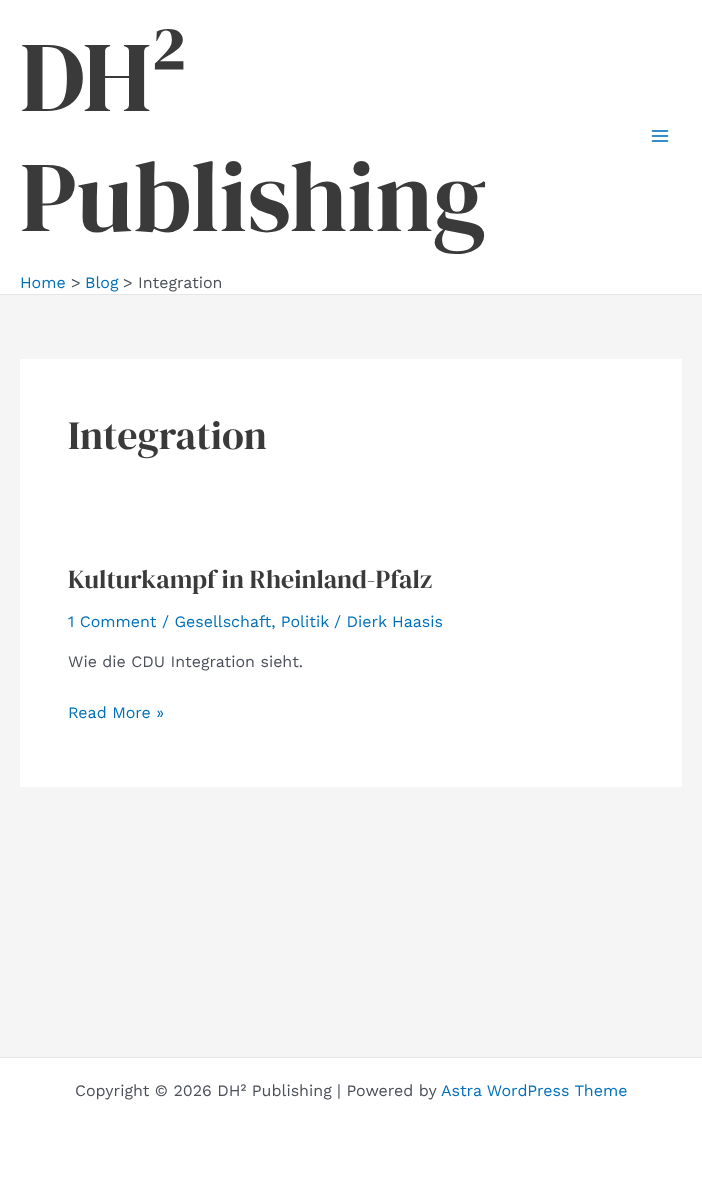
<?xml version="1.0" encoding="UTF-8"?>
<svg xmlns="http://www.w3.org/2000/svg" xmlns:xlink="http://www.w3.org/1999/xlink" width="702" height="1178">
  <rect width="100%" height="100%" fill="#f5f5f5" />
  <rect width="702" height="294" fill="#ffffff" />
  <rect y="294" width="702" height="1" fill="#e5e5e5" />
  <image x="651" y="130" width="18" height="12" xlink:href="image1.png" />
  <rect x="20" y="359" width="662" height="428" fill="#ffffff" />
  <rect y="1058" width="702" height="120" fill="#ffffff" />
  <rect y="1057" width="702" height="1" fill="#e5e5e5" />
  <text x="20" y="111" style="font-family: DM Serif Display; font-size: 100px; fill: #3a3a3a">DH²</text>
  <text x="20" y="231" style="font-family: DM Serif Display; font-size: 100px; fill: #3a3a3a">Publishing</text>
  <text x="20" y="288" style="font-family: Work Sans; font-size: 16px; fill: #0170b9">Home</text>
  <text x="71" y="288" style="font-family: Work Sans; font-size: 16px; fill: #4b4f58">&gt;</text>
  <text x="85" y="288" style="font-family: Work Sans; font-size: 16px; fill: #0170b9">Blog</text>
  <text x="123" y="288" style="font-family: Work Sans; font-size: 16px; fill: #4b4f58">&gt;</text>
  <text x="138" y="288" style="font-family: Work Sans; font-size: 16px; fill: #4b4f58">Integration</text>
  <text x="68" y="449" style="font-family: DM Serif Display; font-size: 40px; fill: #3a3a3a">Integration</text>
  <text x="68" y="588" style="font-family: DM Serif Display; font-size: 26px; fill: #3a3a3a">Kulturkampf in Rheinland-Pfalz</text>
  <text x="68" y="627" style="font-family: Work Sans; font-size: 16px; fill: #0170b9">1 Comment / Gesellschaft, Politik</text>
  <text x="334" y="627" style="font-family: Work Sans; font-size: 16px; fill: #0170b9">/ Dierk Haasis</text>
  <text x="68" y="667" style="font-family: Work Sans; font-size: 16px; fill: #4b4f58">Wie die CDU Integration sieht.</text>
  <text x="68" y="718" style="font-family: Work Sans; font-size: 16px; fill: #0170b9">Read More »</text>
  <text x="75" y="1096" style="font-family: Work Sans; font-size: 16px; fill: #4b4f58">Copyright © 2026 DH² Publishing | Powered by</text>
  <text x="441" y="1096" style="font-family: Work Sans; font-size: 16px; fill: #0170b9">Astra WordPress Theme</text>
</svg>
